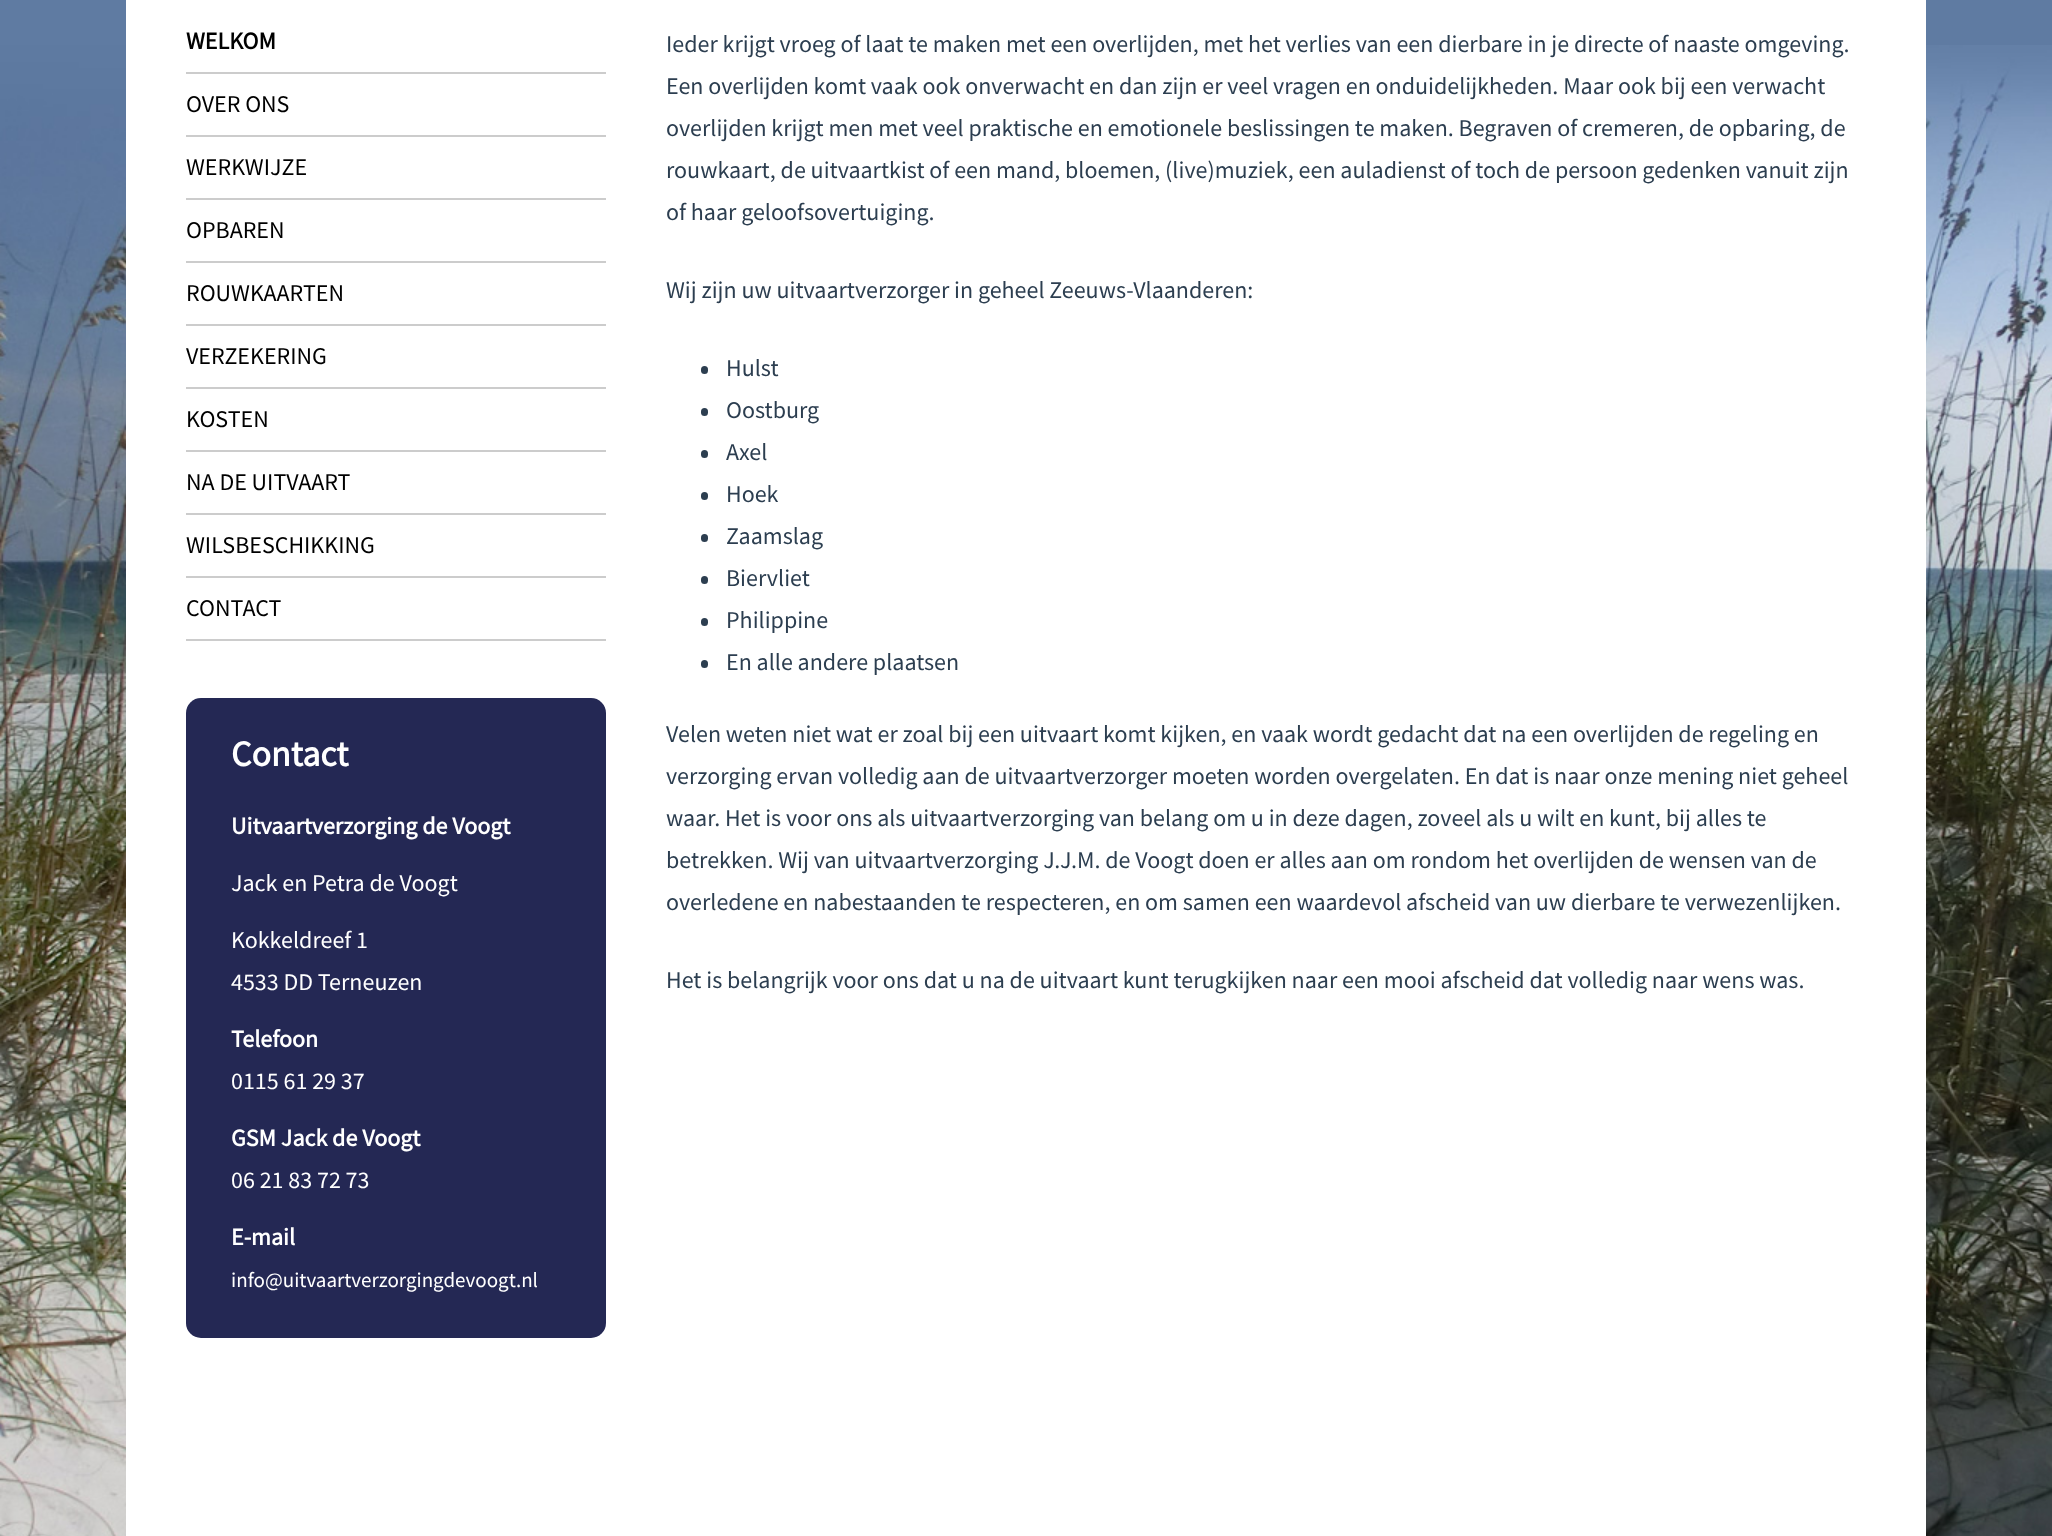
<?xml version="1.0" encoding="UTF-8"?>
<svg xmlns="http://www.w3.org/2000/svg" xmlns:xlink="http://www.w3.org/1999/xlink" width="2052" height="1536">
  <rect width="100%" height="100%" fill="#5f7ba2" />
  <image x="0" y="45" width="2052" height="1491" xlink:href="image1.png" />
  <rect x="126" width="1800" height="1536" fill="#ffffff" />
  <rect x="186" y="72" width="420" height="2" fill="#cccccc" />
  <rect x="186" y="135" width="420" height="2" fill="#cccccc" />
  <rect x="186" y="198" width="420" height="2" fill="#cccccc" />
  <rect x="186" y="261" width="420" height="2" fill="#cccccc" />
  <rect x="186" y="324" width="420" height="2" fill="#cccccc" />
  <rect x="186" y="387" width="420" height="2" fill="#cccccc" />
  <rect x="186" y="450" width="420" height="2" fill="#cccccc" />
  <rect x="186" y="513" width="420" height="2" fill="#cccccc" />
  <rect x="186" y="576" width="420" height="2" fill="#cccccc" />
  <rect x="186" y="639" width="420" height="2" fill="#cccccc" />
  <rect x="186" y="698" width="420" height="640" rx="15" fill="#242854" />
  <rect x="701" y="366" width="7" height="8" rx="3.5" fill="#2c3e50" />
  <rect x="701" y="408" width="7" height="8" rx="3.5" fill="#2c3e50" />
  <rect x="701" y="450" width="7" height="8" rx="3.5" fill="#2c3e50" />
  <rect x="701" y="492" width="7" height="8" rx="3.5" fill="#2c3e50" />
  <rect x="701" y="534" width="7" height="8" rx="3.5" fill="#2c3e50" />
  <rect x="701" y="576" width="7" height="8" rx="3.5" fill="#2c3e50" />
  <rect x="701" y="618" width="7" height="8" rx="3.5" fill="#2c3e50" />
  <rect x="701" y="660" width="7" height="8" rx="3.5" fill="#2c3e50" />
  <text x="186" y="49" style="font-family: Source Sans Pro; font-size: 24px; font-weight: bold; fill: #000000">WELKOM</text>
  <text x="186" y="112" style="font-family: Source Sans Pro; font-size: 24px; fill: #000000">OVER ONS</text>
  <text x="186" y="175" style="font-family: Source Sans Pro; font-size: 24px; fill: #000000">WERKWIJZE</text>
  <text x="186" y="238" style="font-family: Source Sans Pro; font-size: 24px; fill: #000000">OPBAREN</text>
  <text x="186" y="301" style="font-family: Source Sans Pro; font-size: 24px; fill: #000000">ROUWKAARTEN</text>
  <text x="186" y="364" style="font-family: Source Sans Pro; font-size: 24px; fill: #000000">VERZEKERING</text>
  <text x="186" y="427" style="font-family: Source Sans Pro; font-size: 24px; fill: #000000">KOSTEN</text>
  <text x="186" y="490" style="font-family: Source Sans Pro; font-size: 24px; fill: #000000">NA DE UITVAART</text>
  <text x="186" y="553" style="font-family: Source Sans Pro; font-size: 24px; fill: #000000">WILSBESCHIKKING</text>
  <text x="186" y="616" style="font-family: Source Sans Pro; font-size: 24px; fill: #000000">CONTACT</text>
  <text x="231" y="766" style="font-family: Source Sans Pro; font-size: 36px; font-weight: bold; fill: #ffffff">Contact</text>
  <text x="231" y="834" style="font-family: Source Sans Pro; font-size: 24px; font-weight: bold; fill: #ffffff">Uitvaartverzorging de Voogt</text>
  <text x="231" y="891" style="font-family: Source Sans Pro; font-size: 24px; fill: #ffffff">Jack en Petra de Voogt</text>
  <text x="231" y="948" style="font-family: Source Sans Pro; font-size: 24px; fill: #ffffff">Kokkeldreef 1</text>
  <text x="231" y="990" style="font-family: Source Sans Pro; font-size: 24px; fill: #ffffff">4533 DD Terneuzen</text>
  <text x="231" y="1047" style="font-family: Source Sans Pro; font-size: 24px; font-weight: bold; fill: #ffffff">Telefoon</text>
  <text x="231" y="1089" style="font-family: Source Sans Pro; font-size: 24px; fill: #ffffff">0115 61 29 37</text>
  <text x="231" y="1146" style="font-family: Source Sans Pro; font-size: 24px; font-weight: bold; fill: #ffffff">GSM Jack de Voogt</text>
  <text x="231" y="1188" style="font-family: Source Sans Pro; font-size: 24px; fill: #ffffff">06 21 83 72 73</text>
  <text x="231" y="1245" style="font-family: Source Sans Pro; font-size: 24px; font-weight: bold; fill: #ffffff">E-mail</text>
  <text x="231" y="1287" style="font-family: Source Sans Pro; font-size: 21px; fill: #ffffff">info@uitvaartverzorgingdevoogt.nl</text>
  <text x="666" y="52" style="font-family: Source Sans Pro; font-size: 24px; fill: #2c3e50">Ieder krijgt vroeg of laat te maken met een overlijden, met het verlies van een dierbare in je directe of naaste omgeving.</text>
  <text x="666" y="94" style="font-family: Source Sans Pro; font-size: 24px; fill: #2c3e50">Een overlijden komt vaak ook onverwacht en dan zijn er veel vragen en onduidelijkheden. Maar ook bij een verwacht</text>
  <text x="666" y="136" style="font-family: Source Sans Pro; font-size: 24px; fill: #2c3e50">overlijden krijgt men met veel praktische en emotionele beslissingen te maken. Begraven of cremeren, de opbaring, de</text>
  <text x="666" y="178" style="font-family: Source Sans Pro; font-size: 24px; fill: #2c3e50">rouwkaart, de uitvaartkist of een mand, bloemen, (live)muziek, een auladienst of toch de persoon gedenken vanuit zijn</text>
  <text x="666" y="220" style="font-family: Source Sans Pro; font-size: 24px; fill: #2c3e50">of haar geloofsovertuiging.</text>
  <text x="666" y="298" style="font-family: Source Sans Pro; font-size: 24px; fill: #2c3e50">Wij zijn uw uitvaartverzorger in geheel Zeeuws-Vlaanderen:</text>
  <text x="726" y="376" style="font-family: Source Sans Pro; font-size: 24px; fill: #2c3e50">Hulst</text>
  <text x="726" y="418" style="font-family: Source Sans Pro; font-size: 24px; fill: #2c3e50">Oostburg</text>
  <text x="726" y="460" style="font-family: Source Sans Pro; font-size: 24px; fill: #2c3e50">Axel</text>
  <text x="726" y="502" style="font-family: Source Sans Pro; font-size: 24px; fill: #2c3e50">Hoek</text>
  <text x="726" y="544" style="font-family: Source Sans Pro; font-size: 24px; fill: #2c3e50">Zaamslag</text>
  <text x="726" y="586" style="font-family: Source Sans Pro; font-size: 24px; fill: #2c3e50">Biervliet</text>
  <text x="726" y="628" style="font-family: Source Sans Pro; font-size: 24px; fill: #2c3e50">Philippine</text>
  <text x="726" y="670" style="font-family: Source Sans Pro; font-size: 24px; fill: #2c3e50">En alle andere plaatsen</text>
  <text x="666" y="742" style="font-family: Source Sans Pro; font-size: 24px; fill: #2c3e50">Velen weten niet wat er zoal bij een uitvaart komt kijken, en vaak wordt gedacht dat na een overlijden de regeling en</text>
  <text x="666" y="784" style="font-family: Source Sans Pro; font-size: 24px; fill: #2c3e50">verzorging ervan volledig aan de uitvaartverzorger moeten worden overgelaten. En dat is naar onze mening niet geheel</text>
  <text x="666" y="826" style="font-family: Source Sans Pro; font-size: 24px; fill: #2c3e50">waar. Het is voor ons als uitvaartverzorging van belang om u in deze dagen, zoveel als u wilt en kunt, bij alles te</text>
  <text x="666" y="868" style="font-family: Source Sans Pro; font-size: 24px; fill: #2c3e50">betrekken. Wij van uitvaartverzorging J.J.M. de Voogt doen er alles aan om rondom het overlijden de wensen van de</text>
  <text x="666" y="910" style="font-family: Source Sans Pro; font-size: 24px; fill: #2c3e50">overledene en nabestaanden te respecteren, en om samen een waardevol afscheid van uw dierbare te verwezenlijken.</text>
  <text x="666" y="988" style="font-family: Source Sans Pro; font-size: 24px; fill: #2c3e50">Het is belangrijk voor ons dat u na de uitvaart kunt terugkijken naar een mooi afscheid dat volledig naar wens was.</text>
</svg>
